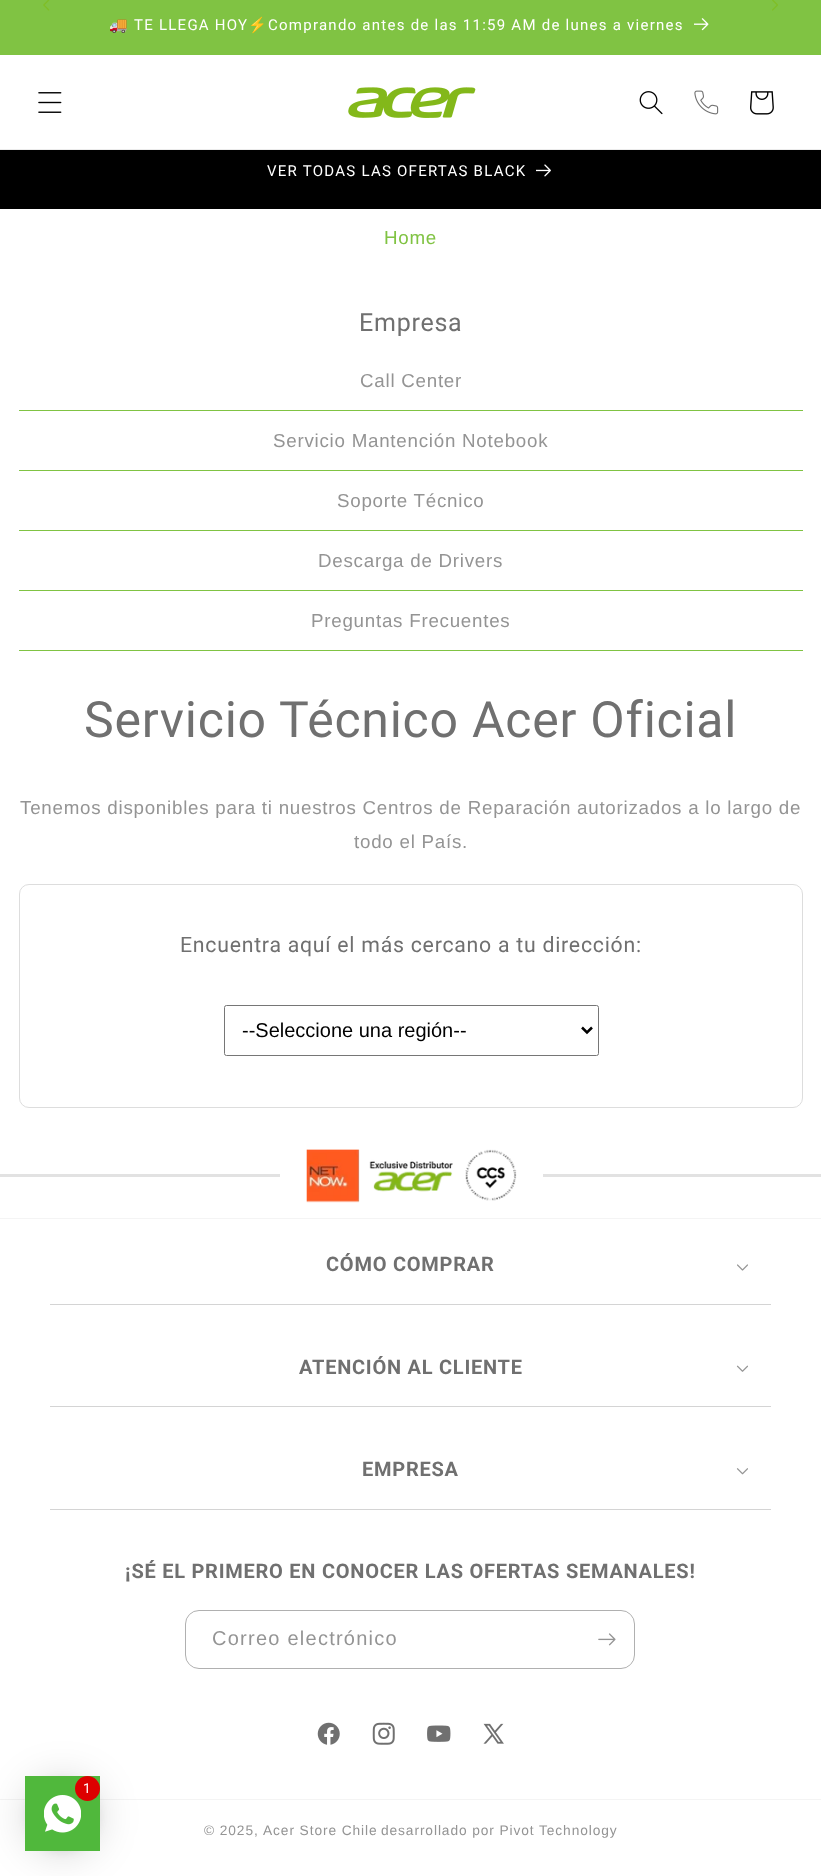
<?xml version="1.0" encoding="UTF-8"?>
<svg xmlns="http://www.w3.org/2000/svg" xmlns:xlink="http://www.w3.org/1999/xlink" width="821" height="1876">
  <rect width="100%" height="100%" fill="#ffffff" />
  <rect width="821" height="55" fill="#80c343" />
  <image x="43" y="0" width="7" height="11" xlink:href="image1.png" />
  <image x="772" y="0" width="6" height="11" xlink:href="image2.png" />
  <image x="694" y="18" width="15" height="13" xlink:href="image3.png" />
  <rect y="149" width="821" height="1" fill="#ebebeb" />
  <image x="38" y="92" width="24" height="21" xlink:href="image4.png" />
  <image x="348" y="87" width="128" height="31" xlink:href="image5.png" />
  <image x="639" y="91" width="24" height="24" xlink:href="image6.png" />
  <image x="694" y="90" width="25" height="25" xlink:href="image7.png" />
  <image x="750" y="91" width="24" height="24" xlink:href="image8.png" />
  <rect y="150" width="821" height="59" fill="#000000" />
  <image x="536" y="164" width="15" height="13" xlink:href="image9.png" />
  <rect x="19" y="410" width="784" height="1" fill="#80c343" />
  <rect x="19" y="470" width="784" height="1" fill="#80c343" />
  <rect x="19" y="530" width="784" height="1" fill="#80c343" />
  <rect x="19" y="590" width="784" height="1" fill="#80c343" />
  <rect x="19" y="650" width="784" height="1" fill="#80c343" />
  <rect x="19.5" y="884.5" width="783" height="223" rx="9.5" fill="none" stroke="#dddddd" />
  <rect x="224.5" y="1005.5" width="374" height="50" rx="2" fill="none" stroke="#767676" />
  <path d="M 582 1027.5 l 5 5 l 5 -5" fill="none" stroke="#000000" stroke-width="2.5" />
  <rect y="1174" width="280" height="3" fill="#e2e2e2" />
  <image x="306" y="1149" width="211" height="54" xlink:href="image10.png" />
  <rect x="543" y="1174" width="278" height="3" fill="#e2e2e2" />
  <rect y="1799" width="821" height="1" fill="#f4f4f4" />
  <rect x="25" y="1779" width="75" height="75" rx="37.5" fill="#000000" fill-opacity="0.16" filter="blur(20px)" />
  <rect x="25" y="1778" width="75" height="75" rx="37.5" fill="#000000" fill-opacity="0.06" filter="blur(4px)" />
  <rect x="25" y="1776" width="75" height="75" fill="#50b83c" />
  <image x="44" y="1795" width="37" height="38" xlink:href="image11.png" />
  <circle cx="87.5" cy="1788.5" r="12.5" fill="#dd0000" />
  <rect y="1218" width="821" height="1" fill="#f4f4f4" />
  <rect x="50" y="1304" width="721" height="1" fill="#d4d4d4" />
  <image x="737" y="1264" width="11" height="7" xlink:href="image12.png" />
  <rect x="50" y="1406" width="721" height="1" fill="#d4d4d4" />
  <image x="736" y="1365" width="12" height="7" xlink:href="image13.png" />
  <rect x="50" y="1509" width="721" height="1" fill="#d4d4d4" />
  <image x="736" y="1468" width="12" height="7" xlink:href="image14.png" />
  <rect x="185.5" y="1610.5" width="449" height="58" rx="13.5" fill="none" stroke="#b0b0b0" />
  <image x="598" y="1633" width="18" height="13" xlink:href="image15.png" />
  <image x="317" y="1722" width="23" height="23" xlink:href="image16.png" />
  <image x="372" y="1722" width="23" height="23" xlink:href="image17.png" />
  <image x="427" y="1725" width="24" height="17" xlink:href="image18.png" />
  <image x="483" y="1723" width="21" height="21" xlink:href="image19.png" />
  <text x="109" y="30" style="font-family: Noto Color Emoji; font-size: 15px; letter-spacing: 1.25px; fill: #ffffff">🚚</text>
  <text x="134" y="30" style="font-family: Roboto; font-size: 15px; letter-spacing: 1.25px; fill: #ffffff">TE LLEGA HOY</text>
  <text x="248" y="30" style="font-family: Noto Color Emoji; font-size: 15px; letter-spacing: 1.25px; fill: #ffffff">⚡</text>
  <text x="268" y="30" style="font-family: Roboto; font-size: 15px; letter-spacing: 1.25px; fill: #ffffff">Comprando antes de las 11:59 AM de lunes a viernes</text>
  <text x="267" y="176" style="font-family: Roboto; font-size: 15px; letter-spacing: 1.25px; fill: #ffffff">VER TODAS LAS OFERTAS BLACK</text>
  <text x="384" y="244" style="font-family: Liberation Sans; font-size: 18.75px; letter-spacing: 0.75px; fill: #80c343">Home</text>
  <text x="359" y="331" style="font-family: Roboto; font-size: 25px; letter-spacing: 0.75px; fill: #707070">Empresa</text>
  <text x="360" y="387" style="font-family: Liberation Sans; font-size: 18.75px; letter-spacing: 0.75px; fill: #949494">Call Center</text>
  <text x="273" y="447" style="font-family: Liberation Sans; font-size: 18.75px; letter-spacing: 0.75px; fill: #949494">Servicio Mantención Notebook</text>
  <text x="337" y="507" style="font-family: Liberation Sans; font-size: 18.75px; letter-spacing: 0.75px; fill: #949494">Soporte Técnico</text>
  <text x="318" y="567" style="font-family: Liberation Sans; font-size: 18.75px; letter-spacing: 0.75px; fill: #949494">Descarga de Drivers</text>
  <text x="311" y="627" style="font-family: Liberation Sans; font-size: 18.75px; letter-spacing: 0.75px; fill: #949494">Preguntas Frecuentes</text>
  <text x="84" y="737" style="font-family: Roboto; font-size: 50px; letter-spacing: 0.75px; fill: #707070">Servicio Técnico Acer Oficial</text>
  <text x="20" y="814" style="font-family: Liberation Sans; font-size: 18.75px; letter-spacing: 0.75px; fill: #949494">Tenemos disponibles para ti nuestros Centros de Reparación autorizados a lo largo de</text>
  <text x="354" y="848" style="font-family: Liberation Sans; font-size: 18.75px; letter-spacing: 0.75px; fill: #949494">todo el País.</text>
  <text x="180" y="952" style="font-family: Roboto; font-size: 21.25px; letter-spacing: 0.75px; fill: #707070">Encuentra aquí el más cercano a tu dirección:</text>
  <text x="242" y="1037" style="font-family: Liberation Sans; font-size: 20px; fill: #000000">--Seleccione una región--</text>
  <text x="83" y="1793" style="font-family: Roboto; font-size: 13.75px; letter-spacing: 0.75px; fill: #ffffff">1</text>
  <text x="326" y="1271" style="font-family: Roboto; font-size: 20px; font-weight: bold; letter-spacing: 0.75px; fill: #707070">CÓMO COMPRAR</text>
  <text x="299" y="1374" style="font-family: Roboto; font-size: 20px; font-weight: bold; letter-spacing: 0.75px; fill: #707070">ATENCIÓN AL CLIENTE</text>
  <text x="362" y="1476" style="font-family: Roboto; font-size: 20px; font-weight: bold; letter-spacing: 0.75px; fill: #707070">EMPRESA</text>
  <text x="125" y="1578" style="font-family: Roboto; font-size: 20px; font-weight: bold; letter-spacing: 0.75px; fill: #707070">¡SÉ EL PRIMERO EN CONOCER LAS OFERTAS SEMANALES!</text>
  <text x="212" y="1645" style="font-family: Liberation Sans; font-size: 20px; letter-spacing: 1.25px; fill: #949494">Correo electrónico</text>
  <text x="204" y="1835" style="font-family: Liberation Sans; font-size: 13.75px; letter-spacing: 0.9px; fill: #949494">© 2025,</text>
  <text x="263" y="1835" style="font-family: Liberation Sans; font-size: 13.75px; letter-spacing: 0.9px; fill: #949494">Acer Store Chile</text>
  <text x="381" y="1835" style="font-family: Liberation Sans; font-size: 13.75px; letter-spacing: 0.9px; fill: #949494">desarrollado por Pivot Technology</text>
</svg>
